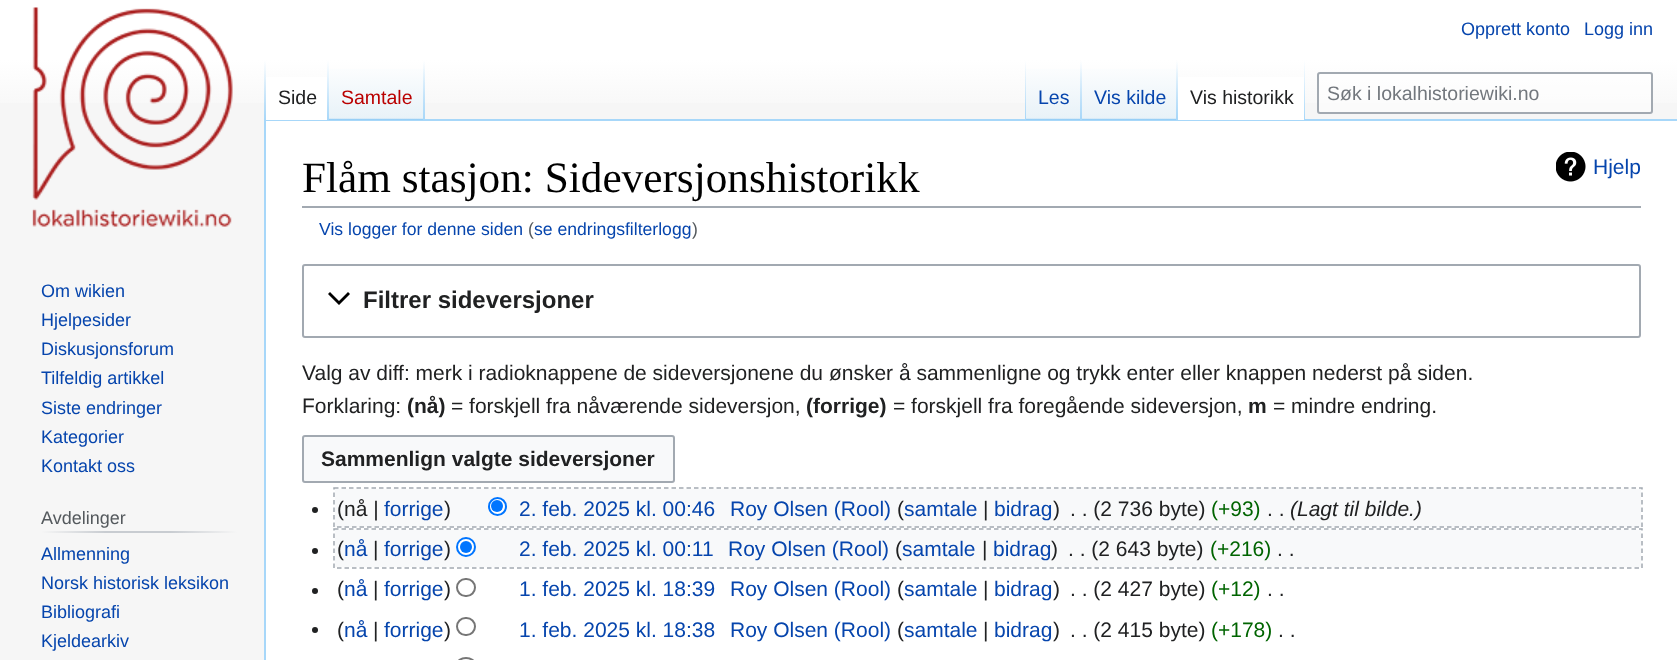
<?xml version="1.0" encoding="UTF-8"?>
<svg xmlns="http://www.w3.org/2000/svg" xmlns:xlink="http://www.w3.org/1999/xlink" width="1677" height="660">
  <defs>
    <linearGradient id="g1" gradientUnits="userSpaceOnUse" x1="839" y1="0" x2="839" y2="120"><stop offset="0.5" stop-color="#ffffff" /><stop offset="1" stop-color="#f6f6f6" /></linearGradient>
    <linearGradient id="g2" gradientUnits="userSpaceOnUse" x1="265" y1="60" x2="265" y2="120"><stop offset="0" stop-color="#a7d7f9" stop-opacity="0" /><stop offset="1" stop-color="#a7d7f9" /></linearGradient>
    <linearGradient id="g3" gradientUnits="userSpaceOnUse" x1="328" y1="60" x2="328" y2="120"><stop offset="0" stop-color="#ffffff" /><stop offset="1" stop-color="#a7d7f9" /></linearGradient>
    <linearGradient id="g4" gradientUnits="userSpaceOnUse" x1="377" y1="120" x2="377" y2="60"><stop offset="0" stop-color="#77c1f6" /><stop offset="0.03" stop-color="#e8f2f8" /><stop offset="1" stop-color="#ffffff" /></linearGradient>
    <linearGradient id="g5" gradientUnits="userSpaceOnUse" x1="424" y1="60" x2="424" y2="120"><stop offset="0" stop-color="#a7d7f9" stop-opacity="0" /><stop offset="1" stop-color="#a7d7f9" /></linearGradient>
    <linearGradient id="g6" gradientUnits="userSpaceOnUse" x1="1025" y1="60" x2="1025" y2="120"><stop offset="0" stop-color="#a7d7f9" stop-opacity="0" /><stop offset="1" stop-color="#a7d7f9" /></linearGradient>
    <linearGradient id="g7" gradientUnits="userSpaceOnUse" x1="1054" y1="120" x2="1054" y2="60"><stop offset="0" stop-color="#77c1f6" /><stop offset="0.03" stop-color="#e8f2f8" /><stop offset="1" stop-color="#ffffff" /></linearGradient>
    <linearGradient id="g8" gradientUnits="userSpaceOnUse" x1="1081" y1="60" x2="1081" y2="120"><stop offset="0" stop-color="#a7d7f9" stop-opacity="0" /><stop offset="1" stop-color="#a7d7f9" /></linearGradient>
    <linearGradient id="g9" gradientUnits="userSpaceOnUse" x1="1130" y1="120" x2="1130" y2="60"><stop offset="0" stop-color="#77c1f6" /><stop offset="0.03" stop-color="#e8f2f8" /><stop offset="1" stop-color="#ffffff" /></linearGradient>
    <linearGradient id="g10" gradientUnits="userSpaceOnUse" x1="1177" y1="60" x2="1177" y2="120"><stop offset="0" stop-color="#a7d7f9" stop-opacity="0" /><stop offset="1" stop-color="#a7d7f9" /></linearGradient>
    <linearGradient id="g11" gradientUnits="userSpaceOnUse" x1="1304" y1="60" x2="1304" y2="120"><stop offset="0" stop-color="#ffffff" /><stop offset="1" stop-color="#a7d7f9" /></linearGradient>
    <linearGradient id="g12" gradientUnits="userSpaceOnUse" x1="41" y1="532" x2="237" y2="532"><stop offset="0" stop-color="#f6f6f6" /><stop offset="0.33" stop-color="#c8ccd1" /><stop offset="0.66" stop-color="#c8ccd1" /><stop offset="1" stop-color="#f6f6f6" /></linearGradient>
  </defs>
  <rect width="100%" height="100%" fill="#f6f6f6" />
  <rect width="1677" height="103" fill="url(#g1)" />
  <rect x="264" y="119" width="1413" height="2" fill="#a7d7f9" />
  <rect x="264" y="119" width="2" height="541" fill="#a7d7f9" />
  <rect x="264" y="60" width="2" height="60" fill="url(#g2)" />
  <rect x="266" y="77" width="61" height="43" fill="#ffffff" />
  <rect x="327" y="60" width="2" height="60" fill="url(#g3)" />
  <rect x="329" y="69" width="96" height="51" fill="url(#g4)" />
  <rect x="423" y="60" width="2" height="60" fill="url(#g5)" />
  <rect x="1025" y="60" width="1" height="60" fill="url(#g6)" />
  <rect x="1026" y="69" width="56" height="51" fill="url(#g7)" />
  <rect x="1080" y="60" width="2" height="60" fill="url(#g8)" />
  <rect x="1082" y="69" width="96" height="51" fill="url(#g9)" />
  <rect x="1176" y="60" width="2" height="60" fill="url(#g10)" />
  <rect x="1178" y="77" width="126" height="43" fill="#ffffff" />
  <rect x="1304" y="60" width="1" height="60" fill="url(#g11)" />
  <rect x="1318" y="73" width="334" height="40" rx="2" fill="#ffffff" fill-opacity="0.5" stroke="#a2a9b1" stroke-width="2" />
  <image x="32" y="7" width="201" height="220" xlink:href="image1.png" />
  <rect x="41" y="531" width="196" height="2" fill="url(#g12)" />
  <rect x="266" y="121" width="1411" height="539" fill="#ffffff" />
  <rect x="302" y="206" width="1339" height="2" fill="#a2a9b1" />
  <image x="1556" y="152" width="30" height="30" xlink:href="image2.png" />
  <rect x="303" y="265" width="1337" height="72" rx="2" fill="none" stroke="#a2a9b1" stroke-width="2" />
  <path d="M 348 292 l -9 9 l -9 -9 l -2 2 l 11 11 l 11 -11 z" fill="#000000" />
  <rect x="303" y="436" width="371" height="46" rx="2" fill="#f8f9fa" stroke="#a2a9b1" stroke-width="2" />
  <rect x="335" y="489" width="1306" height="38" fill="#f8f9fa" />
  <circle cx="315" cy="510" r="3" fill="#202122" />
  <circle cx="497.5" cy="506.5" r="8.5" fill="#ffffff" stroke="#0075ff" stroke-width="2" />
  <circle cx="497" cy="506" r="6" fill="#0075ff" />
  <rect x="335" y="530" width="1306" height="37" fill="#f8f9fa" />
  <circle cx="315" cy="551" r="3" fill="#202122" />
  <circle cx="466" cy="547" r="9" fill="#ffffff" stroke="#0075ff" stroke-width="2" />
  <circle cx="466" cy="547" r="6" fill="#0075ff" />
  <circle cx="315" cy="591" r="3" fill="#202122" />
  <rect x="457" y="579" width="18" height="17" rx="8.5" fill="none" stroke="#767676" stroke-width="2" />
  <circle cx="315" cy="630" r="3" fill="#202122" />
  <rect x="457" y="618" width="18" height="17" rx="8.5" fill="none" stroke="#767676" stroke-width="2" />
  <rect x="457" y="658" width="18" height="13" rx="9" fill="none" stroke="#767676" stroke-width="2" />
  <text x="1461" y="35" style="font-family: Liberation Sans; font-size: 18px; fill: #0645ad">Opprett konto</text>
  <text x="1584" y="35" style="font-family: Liberation Sans; font-size: 18px; fill: #0645ad">Logg inn</text>
  <text x="278" y="104" style="font-family: Liberation Sans; font-size: 19.5px; fill: #202122">Side</text>
  <text x="341" y="104" style="font-family: Liberation Sans; font-size: 19.5px; fill: #ba0000">Samtale</text>
  <text x="1038" y="104" style="font-family: Liberation Sans; font-size: 19.5px; fill: #0645ad">Les</text>
  <text x="1094" y="104" style="font-family: Liberation Sans; font-size: 19.5px; fill: #0645ad">Vis kilde</text>
  <text x="1190" y="104" style="font-family: Liberation Sans; font-size: 19.5px; fill: #202122">Vis historikk</text>
  <text x="1327" y="100" style="font-family: Liberation Sans; font-size: 19.5px; fill: #72777d">Søk i lokalhistoriewiki.no</text>
  <text x="41" y="297" style="font-family: Liberation Sans; font-size: 18px; fill: #0645ad">Om wikien</text>
  <text x="41" y="326" style="font-family: Liberation Sans; font-size: 18px; fill: #0645ad">Hjelpesider</text>
  <text x="41" y="355" style="font-family: Liberation Sans; font-size: 18px; fill: #0645ad">Diskusjonsforum</text>
  <text x="41" y="384" style="font-family: Liberation Sans; font-size: 18px; fill: #0645ad">Tilfeldig artikkel</text>
  <text x="41" y="414" style="font-family: Liberation Sans; font-size: 18px; fill: #0645ad">Siste endringer</text>
  <text x="41" y="443" style="font-family: Liberation Sans; font-size: 18px; fill: #0645ad">Kategorier</text>
  <text x="41" y="472" style="font-family: Liberation Sans; font-size: 18px; fill: #0645ad">Kontakt oss</text>
  <text x="41" y="524" style="font-family: Liberation Sans; font-size: 18px; fill: #54595d">Avdelinger</text>
  <text x="41" y="560" style="font-family: Liberation Sans; font-size: 18px; fill: #0645ad">Allmenning</text>
  <text x="41" y="589" style="font-family: Liberation Sans; font-size: 18px; fill: #0645ad">Norsk historisk leksikon</text>
  <text x="41" y="618" style="font-family: Liberation Sans; font-size: 18px; fill: #0645ad">Bibliografi</text>
  <text x="41" y="647" style="font-family: Liberation Sans; font-size: 18px; fill: #0645ad">Kjeldearkiv</text>
  <text x="302" y="192" style="font-family: Liberation Serif; font-size: 43.25px; fill: #000000">Flåm stasjon: Sideversjonshistorikk</text>
  <text x="1593" y="174" style="font-family: Liberation Sans; font-size: 21px; fill: #0645ad">Hjelp</text>
  <text x="319" y="235" style="font-family: Liberation Sans; font-size: 17.6px; fill: #0645ad">Vis logger for denne siden</text>
  <text x="528" y="235" style="font-family: Liberation Sans; font-size: 17.6px; fill: #54595d">(</text>
  <text x="534" y="235" style="font-family: Liberation Sans; font-size: 17.6px; fill: #0645ad">se endringsfilterlogg</text>
  <text x="692" y="235" style="font-family: Liberation Sans; font-size: 17.6px; fill: #54595d">)</text>
  <text x="363" y="308" style="font-family: Liberation Sans; font-size: 24px; font-weight: bold; fill: #202122">Filtrer sideversjoner</text>
  <text x="302" y="380" style="font-family: Liberation Sans; font-size: 21px; fill: #202122">Valg av diff: merk i radioknappene de sideversjonene du ønsker å sammenligne og trykk enter eller knappen nederst på siden.</text>
  <text x="302" y="413" style="font-family: Liberation Sans; font-size: 21px; fill: #202122">Forklaring:</text>
  <text x="407" y="413" style="font-family: Liberation Sans; font-size: 21px; font-weight: bold; fill: #202122">(nå)</text>
  <text x="451" y="413" style="font-family: Liberation Sans; font-size: 21px; fill: #202122">= forskjell fra nåværende sideversjon,</text>
  <text x="806" y="413" style="font-family: Liberation Sans; font-size: 21px; font-weight: bold; fill: #202122">(forrige)</text>
  <text x="893" y="413" style="font-family: Liberation Sans; font-size: 21px; fill: #202122">= forskjell fra foregående sideversjon,</text>
  <text x="1248" y="413" style="font-family: Liberation Sans; font-size: 21px; font-weight: bold; fill: #202122">m</text>
  <text x="1273" y="413" style="font-family: Liberation Sans; font-size: 21px; fill: #202122">= mindre endring.</text>
  <text x="321" y="466" style="font-family: Liberation Sans; font-size: 21px; font-weight: bold; fill: #202122">Sammenlign valgte sideversjoner</text>
  <text x="337" y="516" style="font-family: Liberation Sans; font-size: 21px; fill: #202122">(nå |</text>
  <text x="384" y="516" style="font-family: Liberation Sans; font-size: 21px; fill: #0645ad">forrige</text>
  <text x="444" y="516" style="font-family: Liberation Sans; font-size: 21px; fill: #202122">)</text>
  <text x="519" y="516" style="font-family: Liberation Sans; font-size: 21px; fill: #0645ad">2. feb. 2025 kl. 00:46</text>
  <text x="730" y="516" style="font-family: Liberation Sans; font-size: 21px; fill: #0645ad">Roy Olsen (Rool)</text>
  <text x="897" y="516" style="font-family: Liberation Sans; font-size: 21px; fill: #202122">(</text>
  <text x="904" y="516" style="font-family: Liberation Sans; font-size: 21px; fill: #0645ad">samtale</text>
  <text x="983" y="516" style="font-family: Liberation Sans; font-size: 21px; fill: #202122">|</text>
  <text x="994" y="516" style="font-family: Liberation Sans; font-size: 21px; fill: #0645ad">bidrag</text>
  <text x="1053" y="516" style="font-family: Liberation Sans; font-size: 21px; fill: #202122">)</text>
  <text x="1070" y="516" style="font-family: Liberation Sans; font-size: 21px; fill: #202122">. . (2 736 byte)</text>
  <text x="1211" y="516" style="font-family: Liberation Sans; font-size: 21px; fill: #006400">(+93)</text>
  <text x="1290" y="516" style="font-family: Liberation Sans; font-size: 21px; font-style: italic; fill: #202122">(Lagt til bilde.)</text>
  <text x="1267" y="516" style="font-family: Liberation Sans; font-size: 21px; fill: #202122">. .</text>
  <path d="M 334 488 h 1308 v 39 h -1308 z" fill="none" stroke="#a2a9b1" stroke-width="1.5" stroke-dasharray="4.5 3" />
  <text x="337" y="556" style="font-family: Liberation Sans; font-size: 21px; fill: #202122">(</text>
  <text x="344" y="556" style="font-family: Liberation Sans; font-size: 21px; fill: #0645ad">nå</text>
  <text x="373" y="556" style="font-family: Liberation Sans; font-size: 21px; fill: #202122">|</text>
  <text x="384" y="556" style="font-family: Liberation Sans; font-size: 21px; fill: #0645ad">forrige</text>
  <text x="444" y="556" style="font-family: Liberation Sans; font-size: 21px; fill: #202122">)</text>
  <text x="519" y="556" style="font-family: Liberation Sans; font-size: 21px; fill: #0645ad">2. feb. 2025 kl. 00:11</text>
  <text x="728" y="556" style="font-family: Liberation Sans; font-size: 21px; fill: #0645ad">Roy Olsen (Rool)</text>
  <text x="895" y="556" style="font-family: Liberation Sans; font-size: 21px; fill: #202122">(</text>
  <text x="902" y="556" style="font-family: Liberation Sans; font-size: 21px; fill: #0645ad">samtale</text>
  <text x="982" y="556" style="font-family: Liberation Sans; font-size: 21px; fill: #202122">|</text>
  <text x="993" y="556" style="font-family: Liberation Sans; font-size: 21px; fill: #0645ad">bidrag</text>
  <text x="1051" y="556" style="font-family: Liberation Sans; font-size: 21px; fill: #202122">)</text>
  <text x="1068" y="556" style="font-family: Liberation Sans; font-size: 21px; fill: #202122">. . (2 643 byte)</text>
  <text x="1210" y="556" style="font-family: Liberation Sans; font-size: 21px; fill: #006400">(+216)</text>
  <text x="1277" y="556" style="font-family: Liberation Sans; font-size: 21px; fill: #202122">. .</text>
  <path d="M 334 529 h 1308 v 39 h -1308 z" fill="none" stroke="#a2a9b1" stroke-width="1.5" stroke-dasharray="4.5 3" />
  <text x="337" y="596" style="font-family: Liberation Sans; font-size: 21px; fill: #202122">(</text>
  <text x="344" y="596" style="font-family: Liberation Sans; font-size: 21px; fill: #0645ad">nå</text>
  <text x="373" y="596" style="font-family: Liberation Sans; font-size: 21px; fill: #202122">|</text>
  <text x="384" y="596" style="font-family: Liberation Sans; font-size: 21px; fill: #0645ad">forrige</text>
  <text x="444" y="596" style="font-family: Liberation Sans; font-size: 21px; fill: #202122">)</text>
  <text x="519" y="596" style="font-family: Liberation Sans; font-size: 21px; fill: #0645ad">1. feb. 2025 kl. 18:39</text>
  <text x="730" y="596" style="font-family: Liberation Sans; font-size: 21px; fill: #0645ad">Roy Olsen (Rool)</text>
  <text x="897" y="596" style="font-family: Liberation Sans; font-size: 21px; fill: #202122">(</text>
  <text x="904" y="596" style="font-family: Liberation Sans; font-size: 21px; fill: #0645ad">samtale</text>
  <text x="983" y="596" style="font-family: Liberation Sans; font-size: 21px; fill: #202122">|</text>
  <text x="994" y="596" style="font-family: Liberation Sans; font-size: 21px; fill: #0645ad">bidrag</text>
  <text x="1053" y="596" style="font-family: Liberation Sans; font-size: 21px; fill: #202122">)</text>
  <text x="1070" y="596" style="font-family: Liberation Sans; font-size: 21px; fill: #202122">. . (2 427 byte)</text>
  <text x="1211" y="596" style="font-family: Liberation Sans; font-size: 21px; fill: #006400">(+12)</text>
  <text x="1267" y="596" style="font-family: Liberation Sans; font-size: 21px; fill: #202122">. .</text>
  <text x="337" y="637" style="font-family: Liberation Sans; font-size: 21px; fill: #202122">(</text>
  <text x="344" y="637" style="font-family: Liberation Sans; font-size: 21px; fill: #0645ad">nå</text>
  <text x="373" y="637" style="font-family: Liberation Sans; font-size: 21px; fill: #202122">|</text>
  <text x="384" y="637" style="font-family: Liberation Sans; font-size: 21px; fill: #0645ad">forrige</text>
  <text x="444" y="637" style="font-family: Liberation Sans; font-size: 21px; fill: #202122">)</text>
  <text x="519" y="637" style="font-family: Liberation Sans; font-size: 21px; fill: #0645ad">1. feb. 2025 kl. 18:38</text>
  <text x="730" y="637" style="font-family: Liberation Sans; font-size: 21px; fill: #0645ad">Roy Olsen (Rool)</text>
  <text x="897" y="637" style="font-family: Liberation Sans; font-size: 21px; fill: #202122">(</text>
  <text x="904" y="637" style="font-family: Liberation Sans; font-size: 21px; fill: #0645ad">samtale</text>
  <text x="983" y="637" style="font-family: Liberation Sans; font-size: 21px; fill: #202122">|</text>
  <text x="994" y="637" style="font-family: Liberation Sans; font-size: 21px; fill: #0645ad">bidrag</text>
  <text x="1053" y="637" style="font-family: Liberation Sans; font-size: 21px; fill: #202122">)</text>
  <text x="1070" y="637" style="font-family: Liberation Sans; font-size: 21px; fill: #202122">. . (2 415 byte)</text>
  <text x="1211" y="637" style="font-family: Liberation Sans; font-size: 21px; fill: #006400">(+178)</text>
  <text x="1278" y="637" style="font-family: Liberation Sans; font-size: 21px; fill: #202122">. .</text>
</svg>
